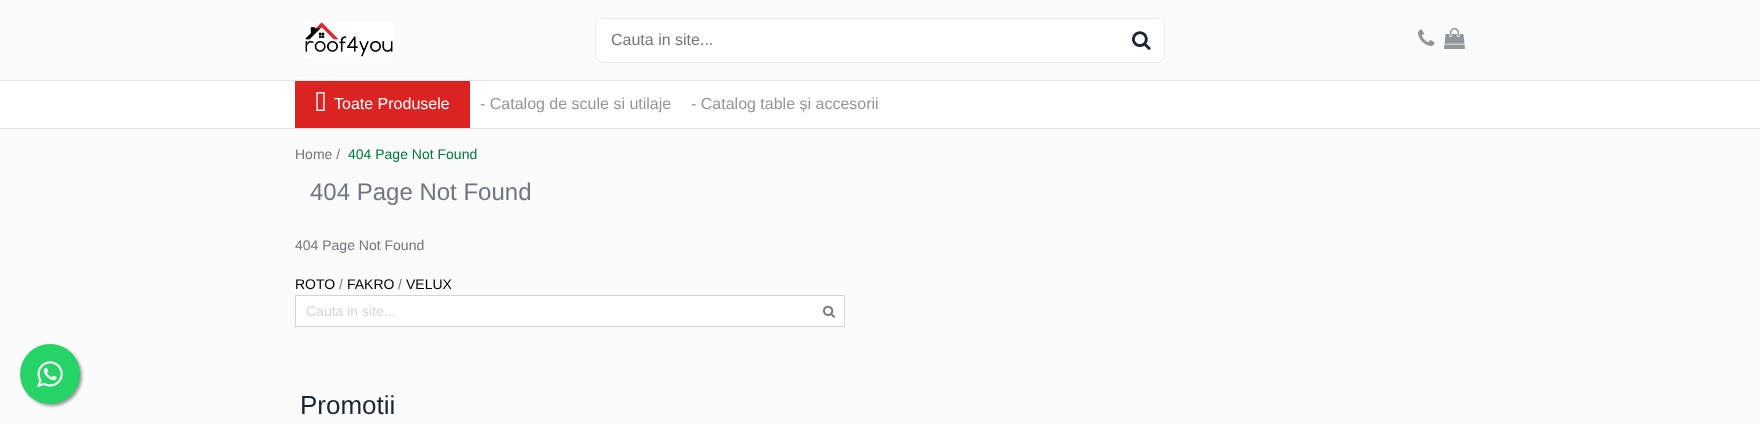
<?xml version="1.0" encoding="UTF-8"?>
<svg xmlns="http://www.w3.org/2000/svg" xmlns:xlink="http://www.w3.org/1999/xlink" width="1760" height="424">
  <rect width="100%" height="100%" fill="#fbfbfb" />
  <rect x="22" y="346" width="60" height="60" rx="30" fill="#999999" filter="blur(1.5px)" />
  <circle cx="50" cy="374" r="30" fill="#25d366" />
  <image x="37" y="361" width="26" height="27" xlink:href="image1.png" />
  <image x="305" y="22" width="88" height="35" xlink:href="image2.png" />
  <rect x="595.5" y="18.5" width="569" height="44" rx="7.5" fill="#ffffff" stroke="#e8e9eb" />
  <image x="1132" y="31" width="19" height="19" xlink:href="image3.png" />
  <image x="1418" y="29" width="17" height="17" xlink:href="image4.png" />
  <image x="1444" y="28" width="21" height="21" xlink:href="image5.png" />
  <rect y="81" width="1760" height="47" fill="#ffffff" />
  <rect y="80" width="1760" height="1" fill="#e5e6e8" />
  <rect y="128" width="1760" height="1" fill="#e5e6e8" />
  <rect x="295" y="81" width="175" height="47" fill="#db2323" />
  <image x="316" y="92" width="9" height="19" xlink:href="image6.png" />
  <rect x="295.5" y="295.5" width="549" height="31" fill="#ffffff" stroke="#d5d5d5" />
  <image x="823" y="305" width="12" height="13" xlink:href="image7.png" />
  <text x="611" y="45" style="font-family: Liberation Sans; font-size: 16px; fill: #757575">Cauta in site...</text>
  <text x="334" y="109" style="font-family: Liberation Sans; font-size: 16px; fill: #ffffff">Toate Produsele</text>
  <text x="480" y="109" style="font-family: Liberation Sans; font-size: 16px; fill: #91969b">- Catalog de scule si utilaje</text>
  <text x="691" y="109" style="font-family: Liberation Sans; font-size: 16px; fill: #91969b">- Catalog table și accesorii</text>
  <text x="295" y="159" style="font-family: Liberation Sans; font-size: 14px; fill: #6f767f">Home /</text>
  <text x="348" y="159" style="font-family: Liberation Sans; font-size: 14px; fill: #00763d">404 Page Not Found</text>
  <text x="310" y="200" style="font-family: Liberation Sans; font-size: 24px; fill: #6f767f">404 Page Not Found</text>
  <text x="295" y="250" style="font-family: Liberation Sans; font-size: 14px; fill: #6f767f">404 Page Not Found</text>
  <text x="295" y="289" style="font-family: Liberation Sans; font-size: 14px; fill: #000000">ROTO</text>
  <text x="339" y="289" style="font-family: Liberation Sans; font-size: 14px; fill: #6f767f">/</text>
  <text x="347" y="289" style="font-family: Liberation Sans; font-size: 14px; fill: #000000">FAKRO</text>
  <text x="398" y="289" style="font-family: Liberation Sans; font-size: 14px; fill: #6f767f">/</text>
  <text x="406" y="289" style="font-family: Liberation Sans; font-size: 14px; fill: #000000">VELUX</text>
  <text x="306" y="316" style="font-family: Liberation Sans; font-size: 14px; fill: #d5d5d5">Cauta in site...</text>
  <text x="300" y="414" style="font-family: Liberation Sans; font-size: 26px; fill: #1a2534">Promotii</text>
</svg>
